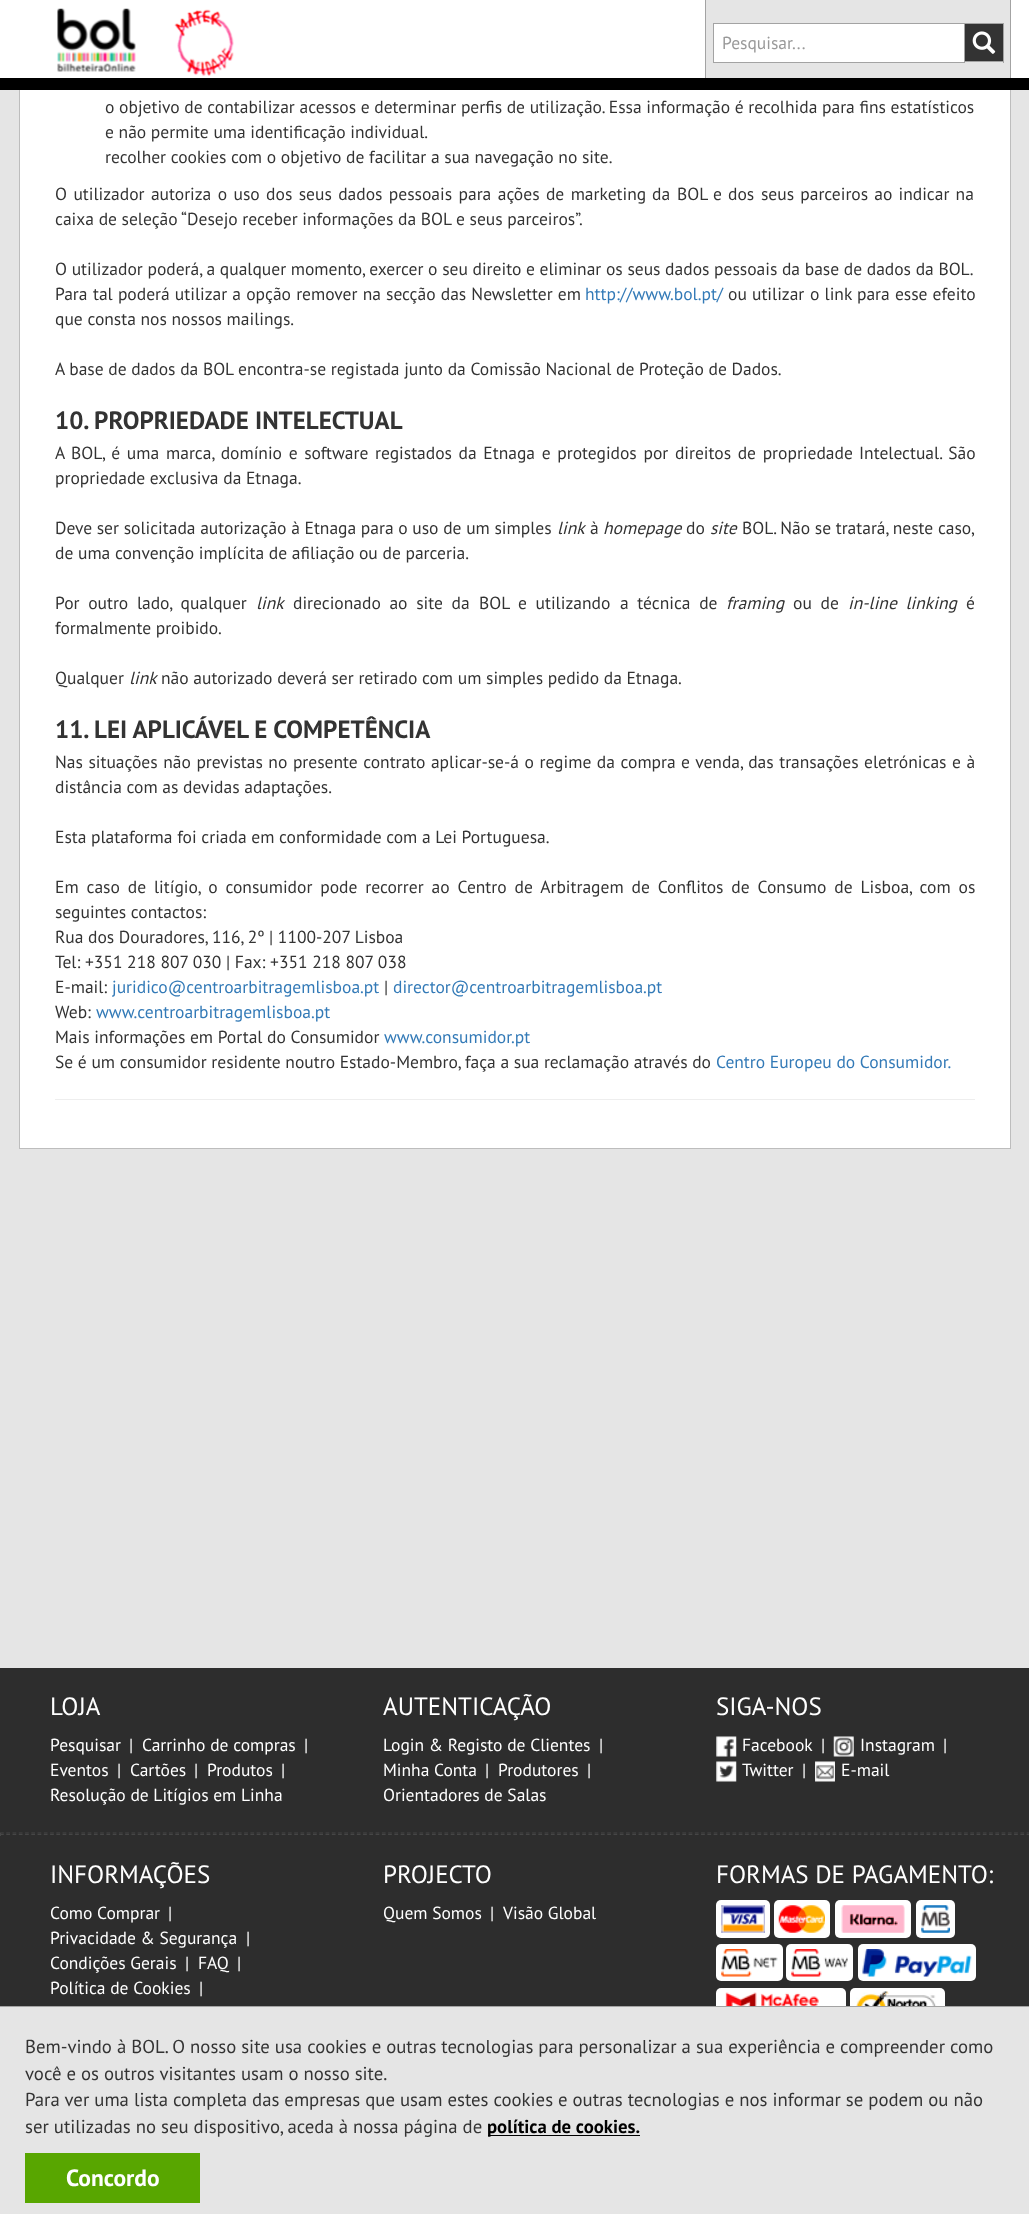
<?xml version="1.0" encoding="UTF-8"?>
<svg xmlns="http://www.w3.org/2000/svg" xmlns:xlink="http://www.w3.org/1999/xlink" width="1029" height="2214">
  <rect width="100%" height="100%" fill="#e5e5e5" />
  <rect x="20" y="90" width="990" height="1058" fill="#ffffff" />
  <rect x="19.5" y="-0.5" width="991" height="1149" fill="none" stroke="#bdbdbd" />
  <rect width="1029" height="78" fill="#ffffff" />
  <rect y="78" width="1029" height="12" fill="#000000" />
  <image x="57" y="8" width="79" height="64" xlink:href="image1.png" />
  <image x="174" y="9" width="60" height="67" xlink:href="image2.png" />
  <rect x="706" width="304" height="78" fill="#e5e5e5" />
  <rect x="1010" width="1" height="78" fill="#a3a3a3" />
  <rect x="705" width="1" height="78" fill="#a3a3a3" />
  <rect x="713.5" y="23.5" width="251" height="39" fill="#ffffff" stroke="#a3a3a3" />
  <rect x="965" y="23" width="39" height="1" fill="#a3a3a3" />
  <rect x="1003" y="23" width="1" height="40" fill="#a3a3a3" />
  <rect x="965" y="61" width="39" height="1" fill="#a3a3a3" />
  <rect x="965" y="24" width="38" height="37" fill="#333333" />
  <image x="972" y="31" width="24" height="23" xlink:href="image3.png" />
  <rect x="55" y="1099" width="920" height="1" fill="#eeeeee" />
  <rect y="1668" width="1029" height="338" fill="#2d2d2d" />
  <image x="716" y="1736" width="21" height="21" xlink:href="image4.png" />
  <image x="833" y="1736" width="21" height="21" xlink:href="image5.png" />
  <image x="716" y="1761" width="21" height="21" xlink:href="image6.png" />
  <image x="815" y="1761" width="20" height="21" xlink:href="image7.png" />
  <path d="M 0 1833 h 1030" fill="none" stroke="#464646" stroke-width="1.2" stroke-dasharray="3.75 2.51" />
  <path d="M 0 1834.5 h 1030" fill="none" stroke="#464646" stroke-width="1.2" stroke-dasharray="3.75 2.51" />
  <rect y="1833" width="1" height="3" fill="#464646" />
  <rect x="716" y="1900" width="54" height="38" rx="5" fill="#ffffff" />
  <image x="721" y="1905" width="44" height="28" xlink:href="image8.png" />
  <rect x="774" y="1900" width="56" height="38" rx="5" fill="#ffffff" />
  <image x="778" y="1905" width="47" height="28" xlink:href="image9.png" />
  <rect x="835" y="1900" width="76" height="38" rx="5" fill="#ffffff" />
  <image x="841" y="1905" width="64" height="28" xlink:href="image10.png" />
  <rect x="916" y="1900" width="39" height="38" rx="5" fill="#ffffff" />
  <image x="921" y="1905" width="29" height="28" xlink:href="image11.png" />
  <rect x="716" y="1944" width="67" height="37" rx="5" fill="#ffffff" />
  <image x="721" y="1949" width="57" height="28" xlink:href="image12.png" />
  <rect x="786" y="1944" width="67" height="37" rx="5" fill="#ffffff" />
  <image x="791" y="1949" width="57" height="28" xlink:href="image13.png" />
  <rect x="858" y="1944" width="118" height="37" rx="5" fill="#ffffff" />
  <image x="862" y="1949" width="110" height="28" xlink:href="image14.png" />
  <rect x="716" y="1988" width="130" height="41" rx="5" fill="#ffffff" />
  <image x="725" y="1992" width="100" height="14" xlink:href="image15.png" />
  <rect x="850" y="1988" width="95" height="41" rx="5" fill="#ffffff" />
  <image x="856" y="1991" width="81" height="15" xlink:href="image16.png" />
  <rect x="716" y="2007" width="229" height="22" fill="#e5e5e5" />
  <rect y="2006" width="1029" height="1" fill="#a3a3a3" />
  <rect x="488" y="2135" width="152" height="1" fill="#000000" />
  <rect x="25" y="2153" width="175" height="50" fill="#58a600" />
  <text x="722" y="49" style="font-family: PT Sans; font-size: 17.5px; fill: #999999">Pesquisar...</text>
  <text x="105" y="113" style="font-family: PT Sans; font-size: 17.5px; fill: #333333">o objetivo de contabilizar acessos e determinar perfis de utilização. Essa informação é recolhida para fins estatísticos</text>
  <text x="105" y="138" style="font-family: PT Sans; font-size: 17.5px; fill: #333333">e não permite uma identificação individual.</text>
  <text x="105" y="163" style="font-family: PT Sans; font-size: 17.5px; fill: #333333">recolher cookies com o objetivo de facilitar a sua navegação no site.</text>
  <text x="55" y="200" word-spacing="1.75" style="font-family: PT Sans; font-size: 17.5px; fill: #333333">O utilizador autoriza o uso dos seus dados pessoais para ações de marketing</text>
  <text x="652" y="200" style="font-family: PT Sans; font-size: 17.5px; fill: #333333">da</text>
  <text x="677" y="200" style="font-family: PT Sans; font-size: 17.5px; fill: #333333">BOL</text>
  <text x="713" y="200" word-spacing="1.5" style="font-family: PT Sans; font-size: 17.5px; fill: #333333">e dos</text>
  <text x="761" y="200" word-spacing="1.5" style="font-family: PT Sans; font-size: 17.5px; fill: #333333">seus parceiros ao indicar na</text>
  <text x="55" y="225" style="font-family: PT Sans; font-size: 17.5px; fill: #333333">caixa de seleção “Desejo receber informações da BOL</text>
  <text x="456" y="225" style="font-family: PT Sans; font-size: 17.5px; fill: #333333">e seus parceiros”.</text>
  <text x="55" y="275" style="font-family: PT Sans; font-size: 17.5px; fill: #333333">O utilizador poderá, a qualquer momento, exercer o seu direito e eliminar os seus dados pessoais da base de dados da BOL.</text>
  <text x="55" y="300" style="font-family: PT Sans; font-size: 17.5px; fill: #333333">Para</text>
  <text x="93" y="300" word-spacing="0.5" style="font-family: PT Sans; font-size: 17.5px; fill: #333333">tal poderá utilizar a opção remover na secção das Newsletter em</text>
  <text x="585" y="300" style="font-family: PT Sans; font-size: 17.5px; fill: #337ab7">http://www.bol.pt/</text>
  <text x="728" y="300" word-spacing="0.5" style="font-family: PT Sans; font-size: 17.5px; fill: #333333">ou utilizar</text>
  <text x="810" y="300" word-spacing="0.5" style="font-family: PT Sans; font-size: 17.5px; fill: #333333">o link para esse efeito</text>
  <text x="55" y="325" style="font-family: PT Sans; font-size: 17.5px; fill: #333333">que consta nos nossos mailings.</text>
  <text x="55" y="375" style="font-family: PT Sans; font-size: 17.5px; fill: #333333">A base de dados da BOL</text>
  <text x="238" y="375" style="font-family: PT Sans; font-size: 17.5px; fill: #333333">encontra-se registada junto da Comissão Nacional de Proteção de Dados.</text>
  <text x="55" y="429" style="font-family: PT Sans; font-size: 25px; font-weight: bold; fill: #333333">10. PROPRIEDADE INTELECTUAL</text>
  <text x="55" y="459" style="font-family: PT Sans; font-size: 17.5px; fill: #333333">A</text>
  <text x="71" y="459" style="font-family: PT Sans; font-size: 17.5px; fill: #333333">BOL</text>
  <text x="102" y="459" word-spacing="2" style="font-family: PT Sans; font-size: 17.5px; fill: #333333">, é uma</text>
  <text x="166" y="459" word-spacing="2" style="font-family: PT Sans; font-size: 17.5px; fill: #333333">marca, domínio e software registados da Etnaga e protegidos por direitos de propriedade</text>
  <text x="859" y="459" word-spacing="2" style="font-family: PT Sans; font-size: 17.5px; fill: #333333">Intelectual. São</text>
  <text x="55" y="484" style="font-family: PT Sans; font-size: 17.5px; fill: #333333">propriedade exclusiva da Etnaga.</text>
  <text x="55" y="534" style="font-family: PT Sans; font-size: 17.5px; fill: #333333">Deve ser solicitada autorização à Etnaga para o uso de um simples</text>
  <text x="557" y="534" style="font-family: PT Sans; font-size: 17.5px; font-style: italic; fill: #333333">link</text>
  <text x="590" y="534" style="font-family: PT Sans; font-size: 17.5px; fill: #333333">à</text>
  <text x="603" y="534" style="font-family: PT Sans; font-size: 17.5px; font-style: italic; fill: #333333">homepage</text>
  <text x="686" y="534" style="font-family: PT Sans; font-size: 17.5px; fill: #333333">do</text>
  <text x="710" y="534" style="font-family: PT Sans; font-size: 17.5px; font-style: italic; fill: #333333">site</text>
  <text x="742" y="534" style="font-family: PT Sans; font-size: 17.5px; fill: #333333">BOL. Não se tratará, neste caso,</text>
  <text x="55" y="559" style="font-family: PT Sans; font-size: 17.5px; fill: #333333">de uma convenção implícita de afiliação ou de parceria.</text>
  <text x="55" y="609" word-spacing="4" style="font-family: PT Sans; font-size: 17.5px; fill: #333333">Por outro lado, qualquer</text>
  <text x="256" y="609" style="font-family: PT Sans; font-size: 17.5px; font-style: italic; fill: #333333">link</text>
  <text x="293" y="609" word-spacing="4" style="font-family: PT Sans; font-size: 17.5px; fill: #333333">direcionado ao site da</text>
  <text x="479" y="609" style="font-family: PT Sans; font-size: 17.5px; fill: #333333">BOL</text>
  <text x="518" y="609" word-spacing="4" style="font-family: PT Sans; font-size: 17.5px; fill: #333333">e utilizando</text>
  <text x="620" y="609" word-spacing="4" style="font-family: PT Sans; font-size: 17.5px; fill: #333333">a técnica de</text>
  <text x="726" y="609" style="font-family: PT Sans; font-size: 17.5px; font-style: italic; fill: #333333">framing</text>
  <text x="793" y="609" word-spacing="4" style="font-family: PT Sans; font-size: 17.5px; fill: #333333">ou de</text>
  <text x="848" y="609" word-spacing="4" style="font-family: PT Sans; font-size: 17.5px; font-style: italic; fill: #333333">in-line linking</text>
  <text x="966" y="609" style="font-family: PT Sans; font-size: 17.5px; fill: #333333">é</text>
  <text x="55" y="634" style="font-family: PT Sans; font-size: 17.5px; fill: #333333">formalmente proibido.</text>
  <text x="55" y="684" style="font-family: PT Sans; font-size: 17.5px; fill: #333333">Qualquer</text>
  <text x="129" y="684" style="font-family: PT Sans; font-size: 17.5px; font-style: italic; fill: #333333">link</text>
  <text x="161" y="684" style="font-family: PT Sans; font-size: 17.5px; fill: #333333">não autorizado deverá ser retirado com um simples pedido da Etnaga.</text>
  <text x="55" y="738" style="font-family: PT Sans; font-size: 25px; font-weight: bold; fill: #333333">11. LEI APLICÁVEL E COMPETÊNCIA</text>
  <text x="55" y="768" word-spacing="0.9" style="font-family: PT Sans; font-size: 17.5px; fill: #333333">Nas situações não previstas no presente contrato aplicar-se-á o regime da compra</text>
  <text x="681" y="768" word-spacing="0.9" style="font-family: PT Sans; font-size: 17.5px; fill: #333333">e venda, das transações eletrónicas e à</text>
  <text x="55" y="793" style="font-family: PT Sans; font-size: 17.5px; fill: #333333">distância com as devidas adaptações.</text>
  <text x="55" y="843" style="font-family: PT Sans; font-size: 17.5px; fill: #333333">Esta plataforma foi criada em conformidade com a Lei Portuguesa.</text>
  <text x="55" y="893" word-spacing="3.25" style="font-family: PT Sans; font-size: 17.5px; fill: #333333">Em caso de litígio, o consumidor pode recorrer ao Centro de Arbitragem de Conflitos de Consumo de Lisboa, com os</text>
  <text x="55" y="918" style="font-family: PT Sans; font-size: 17.5px; fill: #333333">seguintes contactos:</text>
  <text x="55" y="943" style="font-family: PT Sans; font-size: 17.5px; fill: #333333">Rua dos Douradores, 116, 2º | 1100-207 Lisboa</text>
  <text x="55" y="968" style="font-family: PT Sans; font-size: 17.5px; fill: #333333">Tel: +351 218 807 030 | Fax: +351 218 807 038</text>
  <text x="55" y="993" style="font-family: PT Sans; font-size: 17.5px; fill: #333333">E-mail:</text>
  <text x="112" y="993" style="font-family: PT Sans; font-size: 17.5px; fill: #337ab7">juridico@centroarbitragemlisboa.pt</text>
  <text x="384" y="993" style="font-family: PT Sans; font-size: 17.5px; fill: #333333">|</text>
  <text x="393" y="993" style="font-family: PT Sans; font-size: 17.5px; fill: #337ab7">director@centroarbitragemlisboa.pt</text>
  <text x="55" y="1018" style="font-family: PT Sans; font-size: 17.5px; fill: #333333">Web:</text>
  <text x="96" y="1018" style="font-family: PT Sans; font-size: 17.5px; fill: #337ab7">www.centroarbitragemlisboa.pt</text>
  <text x="55" y="1043" style="font-family: PT Sans; font-size: 17.5px; fill: #333333">Mais informações em Portal do Consumidor</text>
  <text x="384" y="1043" style="font-family: PT Sans; font-size: 17.5px; fill: #337ab7">www.consumidor.pt</text>
  <text x="55" y="1068" style="font-family: PT Sans; font-size: 17.5px; fill: #333333">Se é um consumidor residente noutro Estado-Membro, faça a sua reclamação através do</text>
  <text x="716" y="1068" style="font-family: PT Sans; font-size: 17.5px; fill: #337ab7">Centro Europeu do Consumidor.</text>
  <text x="50" y="1715" style="font-family: PT Sans; font-size: 25px; fill: #ffffff">LOJA</text>
  <text x="50" y="1751" style="font-family: PT Sans; font-size: 17.5px; fill: #ffffff">Pesquisar</text>
  <text x="129" y="1751" style="font-family: PT Sans; font-size: 17.5px; fill: #ffffff">|</text>
  <text x="142" y="1751" style="font-family: PT Sans; font-size: 17.5px; fill: #ffffff">Carrinho de compras</text>
  <text x="304" y="1751" style="font-family: PT Sans; font-size: 17.5px; fill: #ffffff">|</text>
  <text x="50" y="1776" style="font-family: PT Sans; font-size: 17.5px; fill: #ffffff">Eventos</text>
  <text x="117" y="1776" style="font-family: PT Sans; font-size: 17.5px; fill: #ffffff">|</text>
  <text x="130" y="1776" style="font-family: PT Sans; font-size: 17.5px; fill: #ffffff">Cartões</text>
  <text x="194" y="1776" style="font-family: PT Sans; font-size: 17.5px; fill: #ffffff">|</text>
  <text x="207" y="1776" style="font-family: PT Sans; font-size: 17.5px; fill: #ffffff">Produtos</text>
  <text x="281" y="1776" style="font-family: PT Sans; font-size: 17.5px; fill: #ffffff">|</text>
  <text x="50" y="1801" style="font-family: PT Sans; font-size: 17.5px; fill: #ffffff">Resolução de Litígios em Linha</text>
  <text x="383" y="1715" style="font-family: PT Sans; font-size: 25px; fill: #ffffff">AUTENTICAÇÃO</text>
  <text x="383" y="1751" style="font-family: PT Sans; font-size: 17.5px; fill: #ffffff">Login &amp; Registo de Clientes</text>
  <text x="599" y="1751" style="font-family: PT Sans; font-size: 17.5px; fill: #ffffff">|</text>
  <text x="383" y="1776" style="font-family: PT Sans; font-size: 17.5px; fill: #ffffff">Minha Conta</text>
  <text x="485" y="1776" style="font-family: PT Sans; font-size: 17.5px; fill: #ffffff">|</text>
  <text x="498" y="1776" style="font-family: PT Sans; font-size: 17.5px; fill: #ffffff">Produtores</text>
  <text x="587" y="1776" style="font-family: PT Sans; font-size: 17.5px; fill: #ffffff">|</text>
  <text x="383" y="1801" style="font-family: PT Sans; font-size: 17.5px; fill: #ffffff">Orientadores de Salas</text>
  <text x="716" y="1715" style="font-family: PT Sans; font-size: 25px; fill: #ffffff">SIGA-NOS</text>
  <text x="742" y="1751" style="font-family: PT Sans; font-size: 17.5px; fill: #ffffff">Facebook</text>
  <text x="821" y="1751" style="font-family: PT Sans; font-size: 17.5px; fill: #ffffff">|</text>
  <text x="860" y="1751" style="font-family: PT Sans; font-size: 17.5px; fill: #ffffff">Instagram</text>
  <text x="943" y="1751" style="font-family: PT Sans; font-size: 17.5px; fill: #ffffff">|</text>
  <text x="742" y="1776" style="font-family: PT Sans; font-size: 17.5px; fill: #ffffff">Twitter</text>
  <text x="802" y="1776" style="font-family: PT Sans; font-size: 17.5px; fill: #ffffff">|</text>
  <text x="841" y="1776" style="font-family: PT Sans; font-size: 17.5px; fill: #ffffff">E-mail</text>
  <text x="50" y="1883" style="font-family: PT Sans; font-size: 25px; fill: #ffffff">INFORMAÇÕES</text>
  <text x="50" y="1919" style="font-family: PT Sans; font-size: 17.5px; fill: #ffffff">Como Comprar</text>
  <text x="168" y="1919" style="font-family: PT Sans; font-size: 17.5px; fill: #ffffff">|</text>
  <text x="50" y="1944" style="font-family: PT Sans; font-size: 17.5px; fill: #ffffff">Privacidade &amp; Segurança</text>
  <text x="246" y="1944" style="font-family: PT Sans; font-size: 17.5px; fill: #ffffff">|</text>
  <text x="50" y="1969" style="font-family: PT Sans; font-size: 17.5px; fill: #ffffff">Condições Gerais</text>
  <text x="185" y="1969" style="font-family: PT Sans; font-size: 17.5px; fill: #ffffff">|</text>
  <text x="198" y="1969" style="font-family: PT Sans; font-size: 17.5px; fill: #ffffff">FAQ</text>
  <text x="237" y="1969" style="font-family: PT Sans; font-size: 17.5px; fill: #ffffff">|</text>
  <text x="50" y="1994" style="font-family: PT Sans; font-size: 17.5px; fill: #ffffff">Política de Cookies</text>
  <text x="199" y="1994" style="font-family: PT Sans; font-size: 17.5px; fill: #ffffff">|</text>
  <text x="383" y="1883" style="font-family: PT Sans; font-size: 25px; fill: #ffffff">PROJECTO</text>
  <text x="383" y="1919" style="font-family: PT Sans; font-size: 17.5px; fill: #ffffff">Quem Somos</text>
  <text x="490" y="1919" style="font-family: PT Sans; font-size: 17.5px; fill: #ffffff">|</text>
  <text x="503" y="1919" style="font-family: PT Sans; font-size: 17.5px; fill: #ffffff">Visão Global</text>
  <text x="716" y="1883" style="font-family: PT Sans; font-size: 25px; fill: #ffffff">FORMAS DE PAGAMENTO:</text>
  <text x="25" y="2053" style="font-family: PT Sans; font-size: 18.75px; fill: #333333">Bem-vindo à BOL. O nosso site usa cookies e outras tecnologias para personalizar a sua experiência e compreender como</text>
  <text x="25" y="2080" style="font-family: PT Sans; font-size: 18.75px; fill: #333333">você e os outros visitantes usam o nosso site.</text>
  <text x="25" y="2106" style="font-family: PT Sans; font-size: 18.75px; fill: #333333">Para ver uma lista completa das empresas que usam estes cookies e outras tecnologias e nos informar se podem ou não</text>
  <text x="25" y="2133" style="font-family: PT Sans; font-size: 18.75px; fill: #333333">ser utilizadas no seu dispositivo, aceda à nossa página de</text>
  <text x="487" y="2133" style="font-family: PT Sans; font-size: 18.75px; font-weight: bold; fill: #000000">política de cookies.</text>
  <text x="66" y="2186" style="font-family: PT Sans; font-size: 23.5px; font-weight: bold; fill: #ffffff">Concordo</text>
</svg>
